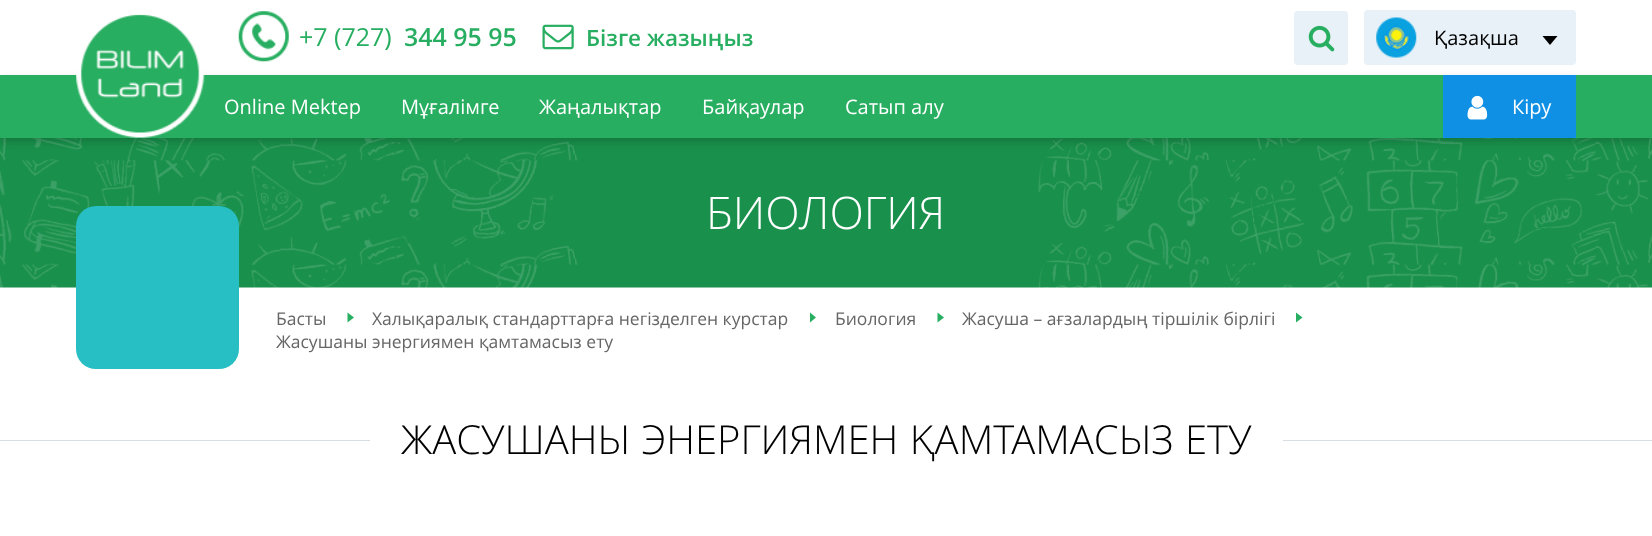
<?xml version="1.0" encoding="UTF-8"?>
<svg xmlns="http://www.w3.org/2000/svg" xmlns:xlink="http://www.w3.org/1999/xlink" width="1652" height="536">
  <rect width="100%" height="100%" fill="#ffffff" />
  <image x="238" y="11" width="51" height="51" xlink:href="image1.png" />
  <image x="542" y="24" width="32" height="26" xlink:href="image2.png" />
  <rect x="1294" y="11" width="54" height="54" rx="4" fill="#e8f1f7" />
  <image x="1308" y="25" width="27" height="27" xlink:href="image3.png" />
  <rect x="1364" y="10" width="212" height="55" rx="4" fill="#e8f1f7" />
  <image x="1376" y="17" width="41" height="41" xlink:href="image4.png" />
  <path d="M 1542.5 36 h 15 l -7.5 9 z" fill="#000000" />
  <image x="0" y="138" width="1652" height="150" xlink:href="image7.png" />
  <rect y="79" width="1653" height="62" fill="#000000" fill-opacity="0.2" filter="blur(4.5px)" />
  <rect y="75" width="1652" height="63" fill="#27ae60" />
  <image x="76" y="14" width="129" height="124" xlink:href="image5.png" />
  <rect x="1443" y="75" width="133" height="63" fill="#0f90e5" />
  <image x="1467" y="95" width="21" height="25" xlink:href="image6.png" />
  <rect x="76" y="206" width="163" height="163" rx="20" fill="#27bec4" />
  <path d="M 347.5 322.5 v -10 l 6.5 5 z" fill="#27ae60" />
  <path d="M 810 322.5 v -10 l 6 5 z" fill="#27ae60" />
  <path d="M 937.5 322.5 v -10 l 6.5 5 z" fill="#27ae60" />
  <path d="M 1296 322.5 v -10 l 6.5 5 z" fill="#27ae60" />
  <rect y="440" width="370" height="1" fill="#d7dde1" />
  <rect x="1283" y="440" width="369" height="1" fill="#d7dde1" />
  <text x="299" y="46" style="font-family: Open Sans; font-size: 25px; fill: #27ae60">+7 (727)</text>
  <text x="404" y="46" style="font-family: Open Sans; font-size: 25px; font-weight: 600; fill: #27ae60">344 95 95</text>
  <text x="586" y="46" style="font-family: Open Sans; font-size: 22.5px; font-weight: 600; fill: #27ae60">Бізге жазыңыз</text>
  <text x="1434" y="45" style="font-family: Open Sans; font-size: 20px; fill: #000000">Қазақша</text>
  <text x="224" y="114" style="font-family: Open Sans; font-size: 20px; fill: #ffffff">Online Mektep</text>
  <text x="401" y="114" style="font-family: Open Sans; font-size: 20px; fill: #ffffff">Мұғалімге</text>
  <text x="539" y="114" style="font-family: Open Sans; font-size: 20px; fill: #ffffff">Жаңалықтар</text>
  <text x="702" y="114" style="font-family: Open Sans; font-size: 20px; fill: #ffffff">Байқаулар</text>
  <text x="845" y="114" style="font-family: Open Sans; font-size: 20px; fill: #ffffff">Сатып алу</text>
  <text x="1512" y="114" style="font-family: Open Sans; font-size: 20px; fill: #ffffff">Кiру</text>
  <text x="706" y="229" style="font-family: Open Sans; font-size: 45px; font-weight: 300; fill: #ffffff">БИОЛОГИЯ</text>
  <text x="276" y="325" style="font-family: Open Sans; font-size: 17.5px; fill: #666666">Басты</text>
  <text x="372" y="325" style="font-family: Open Sans; font-size: 17.5px; fill: #666666">Халықаралық стандарттарға негізделген курстар</text>
  <text x="835" y="325" style="font-family: Open Sans; font-size: 17.5px; fill: #666666">Биология</text>
  <text x="962" y="325" style="font-family: Open Sans; font-size: 17.5px; fill: #666666">Жасуша – ағзалардың тіршілік бірлігі</text>
  <text x="276" y="348" style="font-family: Open Sans; font-size: 17.5px; fill: #666666">Жасушаны энергиямен қамтамасыз ету</text>
  <text x="401" y="454" word-spacing="1" style="font-family: Open Sans; font-size: 40px; font-weight: 300; fill: #000000">ЖАСУШАНЫ ЭНЕРГИЯМЕН ҚАМТАМАСЫЗ ЕТУ</text>
</svg>
